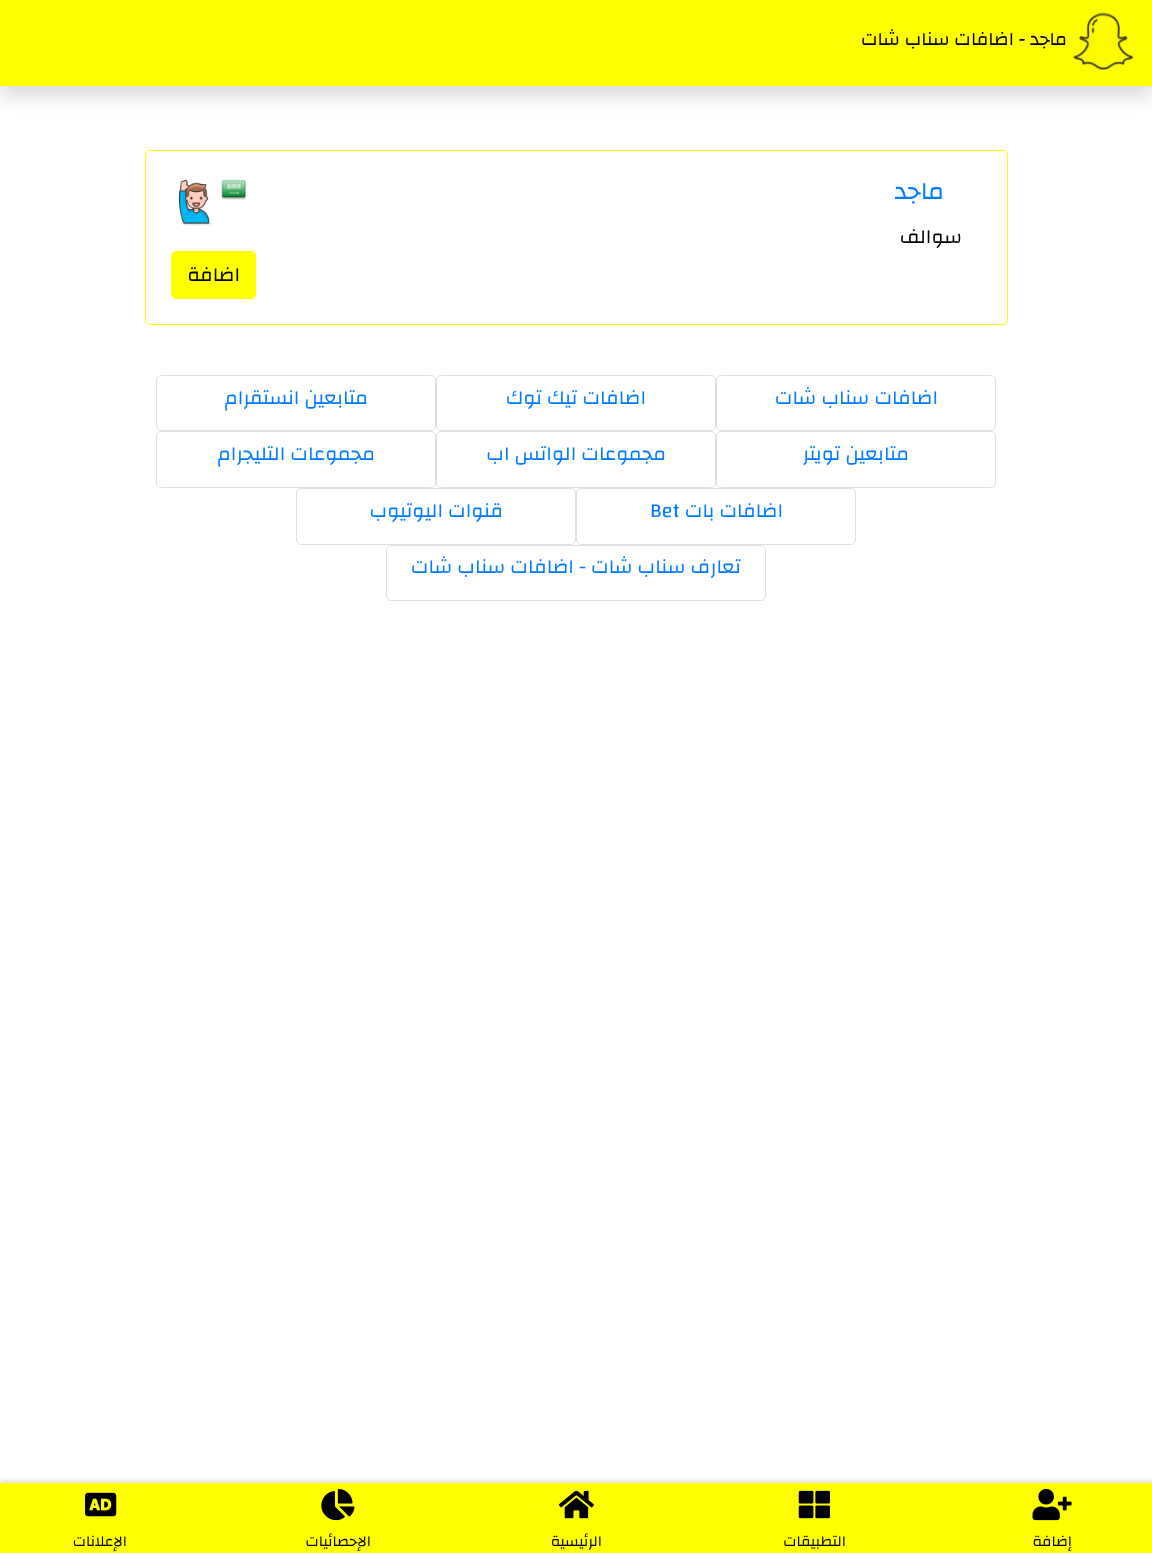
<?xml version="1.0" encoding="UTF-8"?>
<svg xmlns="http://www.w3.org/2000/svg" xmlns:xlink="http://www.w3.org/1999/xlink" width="1152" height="1553">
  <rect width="100%" height="100%" fill="#ffffff" />
  <rect y="10" width="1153" height="86" fill="#000000" fill-opacity="0.15" filter="blur(10px)" />
  <rect width="1152" height="86" fill="#ffff00" />
  <image x="1073" y="12" width="60" height="58" xlink:href="image1.png" />
  <rect x="145.5" y="150.5" width="862" height="174" rx="4.5" fill="none" stroke="#ffff00" />
  <image x="221" y="179" width="25" height="21" xlink:href="image2.png" />
  <image x="178" y="179" width="34" height="47" xlink:href="image3.png" />
  <rect x="171.5" y="251.5" width="84" height="47" rx="4.5" fill="#ffff00" stroke="#ffff00" />
  <rect x="716.5" y="375.5" width="279" height="55" rx="4.5" fill="none" stroke="#dfdfdf" />
  <rect x="436.5" y="375.5" width="279" height="55" rx="4.5" fill="none" stroke="#dfdfdf" />
  <rect x="156.5" y="375.5" width="279" height="55" rx="4.5" fill="none" stroke="#dfdfdf" />
  <rect x="716.5" y="431.5" width="279" height="56" rx="4.5" fill="none" stroke="#dfdfdf" />
  <rect x="436.5" y="431.5" width="279" height="56" rx="4.5" fill="none" stroke="#dfdfdf" />
  <rect x="156.5" y="431.5" width="279" height="56" rx="4.5" fill="none" stroke="#dfdfdf" />
  <rect x="576.5" y="488.5" width="279" height="56" rx="4.5" fill="none" stroke="#dfdfdf" />
  <rect x="296.5" y="488.5" width="279" height="56" rx="4.5" fill="none" stroke="#dfdfdf" />
  <rect x="386.5" y="545.5" width="379" height="55" rx="4.5" fill="none" stroke="#dfdfdf" />
  <rect y="1480" width="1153" height="71" fill="#000000" fill-opacity="0.1" filter="blur(2px)" />
  <rect y="1483" width="1152" height="70" fill="#ffff00" />
  <image x="1032" y="1488" width="40" height="33" xlink:href="image4.png" />
  <image x="798" y="1490" width="32" height="29" xlink:href="image5.png" />
  <image x="558" y="1490" width="36" height="29" xlink:href="image6.png" />
  <image x="321" y="1488" width="34" height="33" xlink:href="image7.png" />
  <image x="85" y="1492" width="32" height="25" xlink:href="image8.png" />
  <text x="1067" y="45" style="font-family: Changa; font-size: 18.75px; direction: rtl; fill: #000000">ماجد - اضافات سناب شات</text>
  <text x="944" y="199" style="font-family: Changa; font-size: 25px; direction: rtl; fill: #007bff">ماجد</text>
  <text x="962" y="243" style="font-family: Changa; font-size: 20px; direction: rtl; fill: #000000">سوالف</text>
  <text x="240" y="281" style="font-family: Changa; font-size: 20px; direction: rtl; fill: #000000">اضافة</text>
  <text x="938" y="404" style="font-family: Changa; font-size: 20px; direction: rtl; fill: #007bff">اضافات سناب شات</text>
  <text x="646" y="404" style="font-family: Changa; font-size: 20px; direction: rtl; fill: #007bff">اضافات تيك توك</text>
  <text x="368" y="404" style="font-family: Changa; font-size: 20px; direction: rtl; fill: #007bff">متابعين انستقرام</text>
  <text x="909" y="460" style="font-family: Changa; font-size: 20px; direction: rtl; fill: #007bff">متابعين تويتر</text>
  <text x="666" y="460" style="font-family: Changa; font-size: 20px; direction: rtl; fill: #007bff">مجموعات الواتس اب</text>
  <text x="375" y="460" style="font-family: Changa; font-size: 20px; direction: rtl; fill: #007bff">مجموعات التليجرام</text>
  <text x="783" y="517" style="font-family: Changa; font-size: 20px; direction: rtl; fill: #007bff">اضافات بات</text>
  <text x="650" y="517" style="font-family: Changa; font-size: 20px; fill: #007bff">Bet</text>
  <text x="503" y="517" style="font-family: Changa; font-size: 20px; direction: rtl; fill: #007bff">قنوات اليوتيوب</text>
  <text x="741" y="573" style="font-family: Changa; font-size: 20px; direction: rtl; fill: #007bff">تعارف سناب شات - اضافات سناب شات</text>
  <text x="1072" y="1546" style="font-family: Changa; font-size: 15px; direction: rtl; fill: #000000">إضافة</text>
  <text x="846" y="1546" style="font-family: Changa; font-size: 15px; direction: rtl; fill: #000000">التطبيقات</text>
  <text x="602" y="1546" style="font-family: Changa; font-size: 15px; direction: rtl; fill: #000000">الرئيسية</text>
  <text x="371" y="1546" style="font-family: Changa; font-size: 15px; direction: rtl; fill: #000000">الإحصائيات</text>
  <text x="127" y="1546" style="font-family: Changa; font-size: 15px; direction: rtl; fill: #000000">الإعلانات</text>
</svg>
